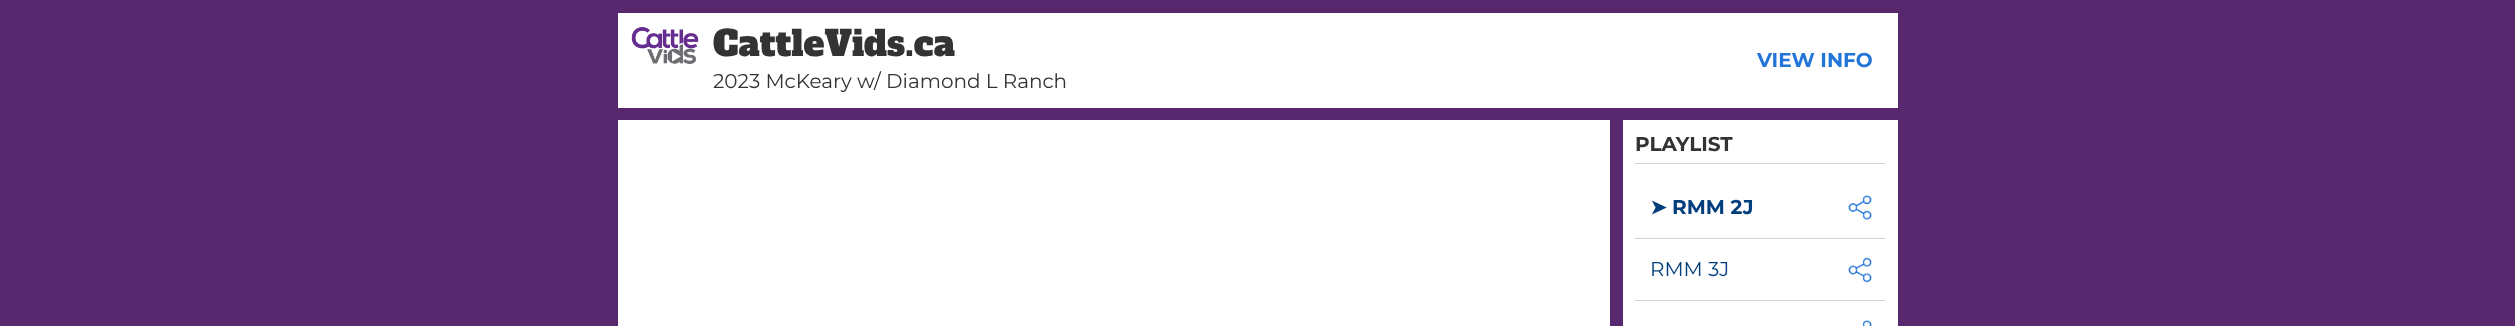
<?xml version="1.0" encoding="UTF-8"?>
<svg xmlns="http://www.w3.org/2000/svg" xmlns:xlink="http://www.w3.org/1999/xlink" width="2515" height="326">
  <rect width="100%" height="100%" fill="#58286e" />
  <rect x="618" y="13" width="1280" height="95" fill="#ffffff" />
  <image x="631" y="26" width="68" height="38" xlink:href="image1.png" />
  <rect x="618" y="120" width="992" height="206" fill="#ffffff" />
  <rect x="1623" y="120" width="275" height="206" fill="#ffffff" />
  <rect x="1635" y="163" width="250" height="1" fill="#d3d3d3" />
  <rect x="1635" y="238" width="250" height="1" fill="#d3d3d3" />
  <image x="1848" y="195" width="24" height="25" xlink:href="image2.png" />
  <rect x="1635" y="300" width="250" height="1" fill="#d3d3d3" />
  <image x="1848" y="257" width="24" height="26" xlink:href="image3.png" />
  <image x="1862" y="320" width="10" height="6" xlink:href="image4.png" />
  <text x="713" y="56" style="font-family: Alfa Slab One; font-size: 35px; fill: #333333">CattleVids.ca</text>
  <text x="713" y="88" style="font-family: Montserrat; font-size: 20px; fill: #333333">2023 McKeary w/ Diamond L Ranch</text>
  <text x="1757" y="67" style="font-family: Montserrat; font-size: 20px; font-weight: bold; fill: #2375d8">VIEW INFO</text>
  <text x="1635" y="151" style="font-family: Montserrat; font-size: 20px; font-weight: bold; fill: #333333">PLAYLIST</text>
  <text x="1650" y="214" style="font-family: DejaVu Sans; font-size: 20px; font-weight: bold; fill: #003e7c">➤</text>
  <text x="1672" y="214" style="font-family: Montserrat; font-size: 20px; font-weight: bold; fill: #003e7c">RMM 2J</text>
  <text x="1650" y="276" style="font-family: Montserrat; font-size: 20px; fill: #003e7c">RMM 3J</text>
</svg>
